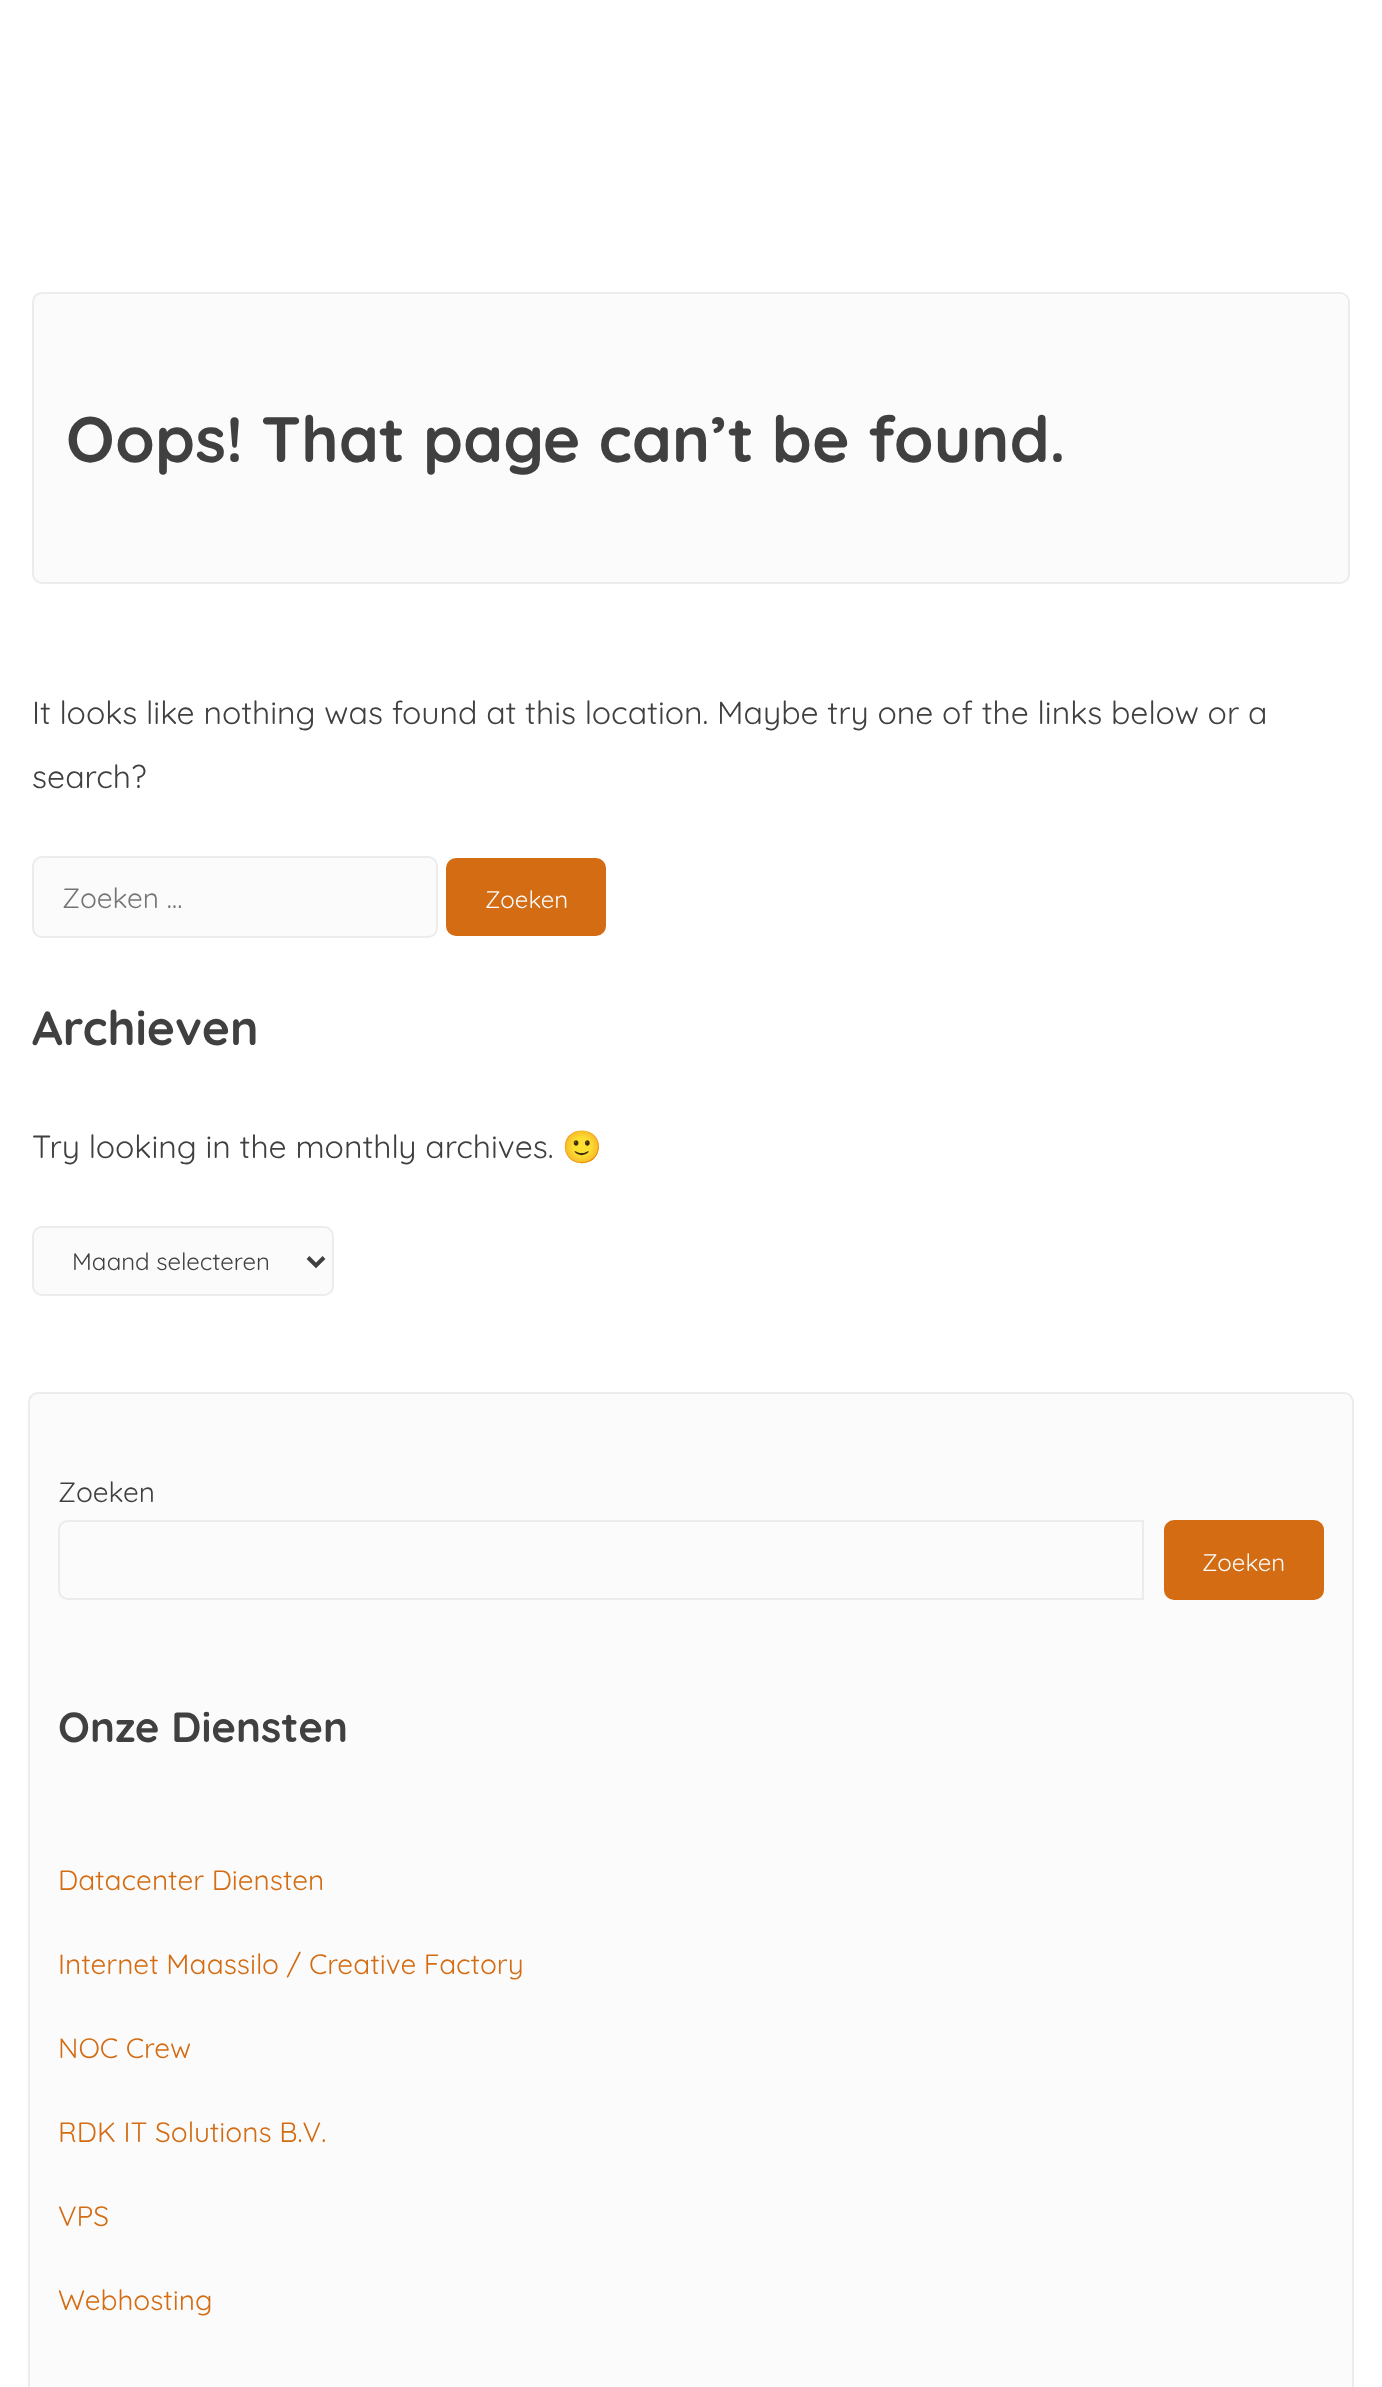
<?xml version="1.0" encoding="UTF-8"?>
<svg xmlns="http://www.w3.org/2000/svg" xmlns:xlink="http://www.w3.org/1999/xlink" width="1382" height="2387">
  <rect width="100%" height="100%" fill="#ffffff" />
  <rect x="33" y="293" width="1316" height="290" rx="9" fill="#fbfbfb" stroke="#ececec" stroke-width="2" />
  <rect x="33" y="857" width="404" height="80" rx="9" fill="#fbfbfb" stroke="#ececec" stroke-width="2" />
  <rect x="446" y="858" width="160" height="78" rx="10" fill="#d36c13" />
  <rect x="33" y="1227" width="300" height="68" rx="9" fill="#fbfbfb" stroke="#ececec" stroke-width="2" />
  <path d="M 308 1257.5 l 8 8 l 8 -8" fill="none" stroke="#404040" stroke-width="4" />
  <rect x="29" y="1393" width="1324" height="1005" rx="9" fill="#fbfbfb" stroke="#ececec" stroke-width="2" />
  <path d="M 68 1521 h 1075 v 78 h -1075 c -5 0 -9 -4 -9 -9 v -60 c 0 -5 4 -9 9 -9 z" fill="none" stroke="#ececec" stroke-width="2" />
  <rect x="1164" y="1520" width="160" height="80" rx="10" fill="#d36c13" />
  <text x="66" y="462" style="font-family: Quicksand; font-size: 64px; font-weight: bold; fill: #404040">Oops! That page can’t be found.</text>
  <text x="32" y="724" style="font-family: Quicksand; font-size: 32px; fill: #404040">It looks like nothing was found at this location. Maybe try one of the links below or a</text>
  <text x="32" y="788" style="font-family: Quicksand; font-size: 32px; fill: #404040">search?</text>
  <text x="62" y="908" style="font-family: Quicksand; font-size: 28px; fill: #757575">Zoeken …</text>
  <text x="485" y="908" style="font-family: Quicksand; font-size: 24px; fill: #fbfbfb">Zoeken</text>
  <text x="32" y="1045" style="font-family: Quicksand; font-size: 48px; font-weight: bold; fill: #404040">Archieven</text>
  <text x="32" y="1158" style="font-family: Quicksand; font-size: 32px; fill: #404040">Try looking in the monthly archives.</text>
  <text x="562" y="1158" style="font-family: Noto Color Emoji; font-size: 32px; fill: #404040">🙂</text>
  <text x="72" y="1270" style="font-family: Quicksand; font-size: 24px; fill: #404040">Maand selecteren</text>
  <text x="58" y="1502" style="font-family: Quicksand; font-size: 28px; fill: #404040">Zoeken</text>
  <text x="1202" y="1571" style="font-family: Quicksand; font-size: 24px; fill: #fbfbfb">Zoeken</text>
  <text x="58" y="1742" style="font-family: Quicksand; font-size: 42px; font-weight: bold; fill: #404040">Onze Diensten</text>
  <text x="58" y="1890" style="font-family: Quicksand; font-size: 28px; fill: #d36c13">Datacenter Diensten</text>
  <text x="58" y="1974" style="font-family: Quicksand; font-size: 28px; fill: #d36c13">Internet Maassilo / Creative Factory</text>
  <text x="58" y="2058" style="font-family: Quicksand; font-size: 28px; fill: #d36c13">NOC Crew</text>
  <text x="58" y="2142" style="font-family: Quicksand; font-size: 28px; fill: #d36c13">RDK IT Solutions B.V.</text>
  <text x="58" y="2226" style="font-family: Quicksand; font-size: 28px; fill: #d36c13">VPS</text>
  <text x="58" y="2310" style="font-family: Quicksand; font-size: 28px; fill: #d36c13">Webhosting</text>
</svg>
